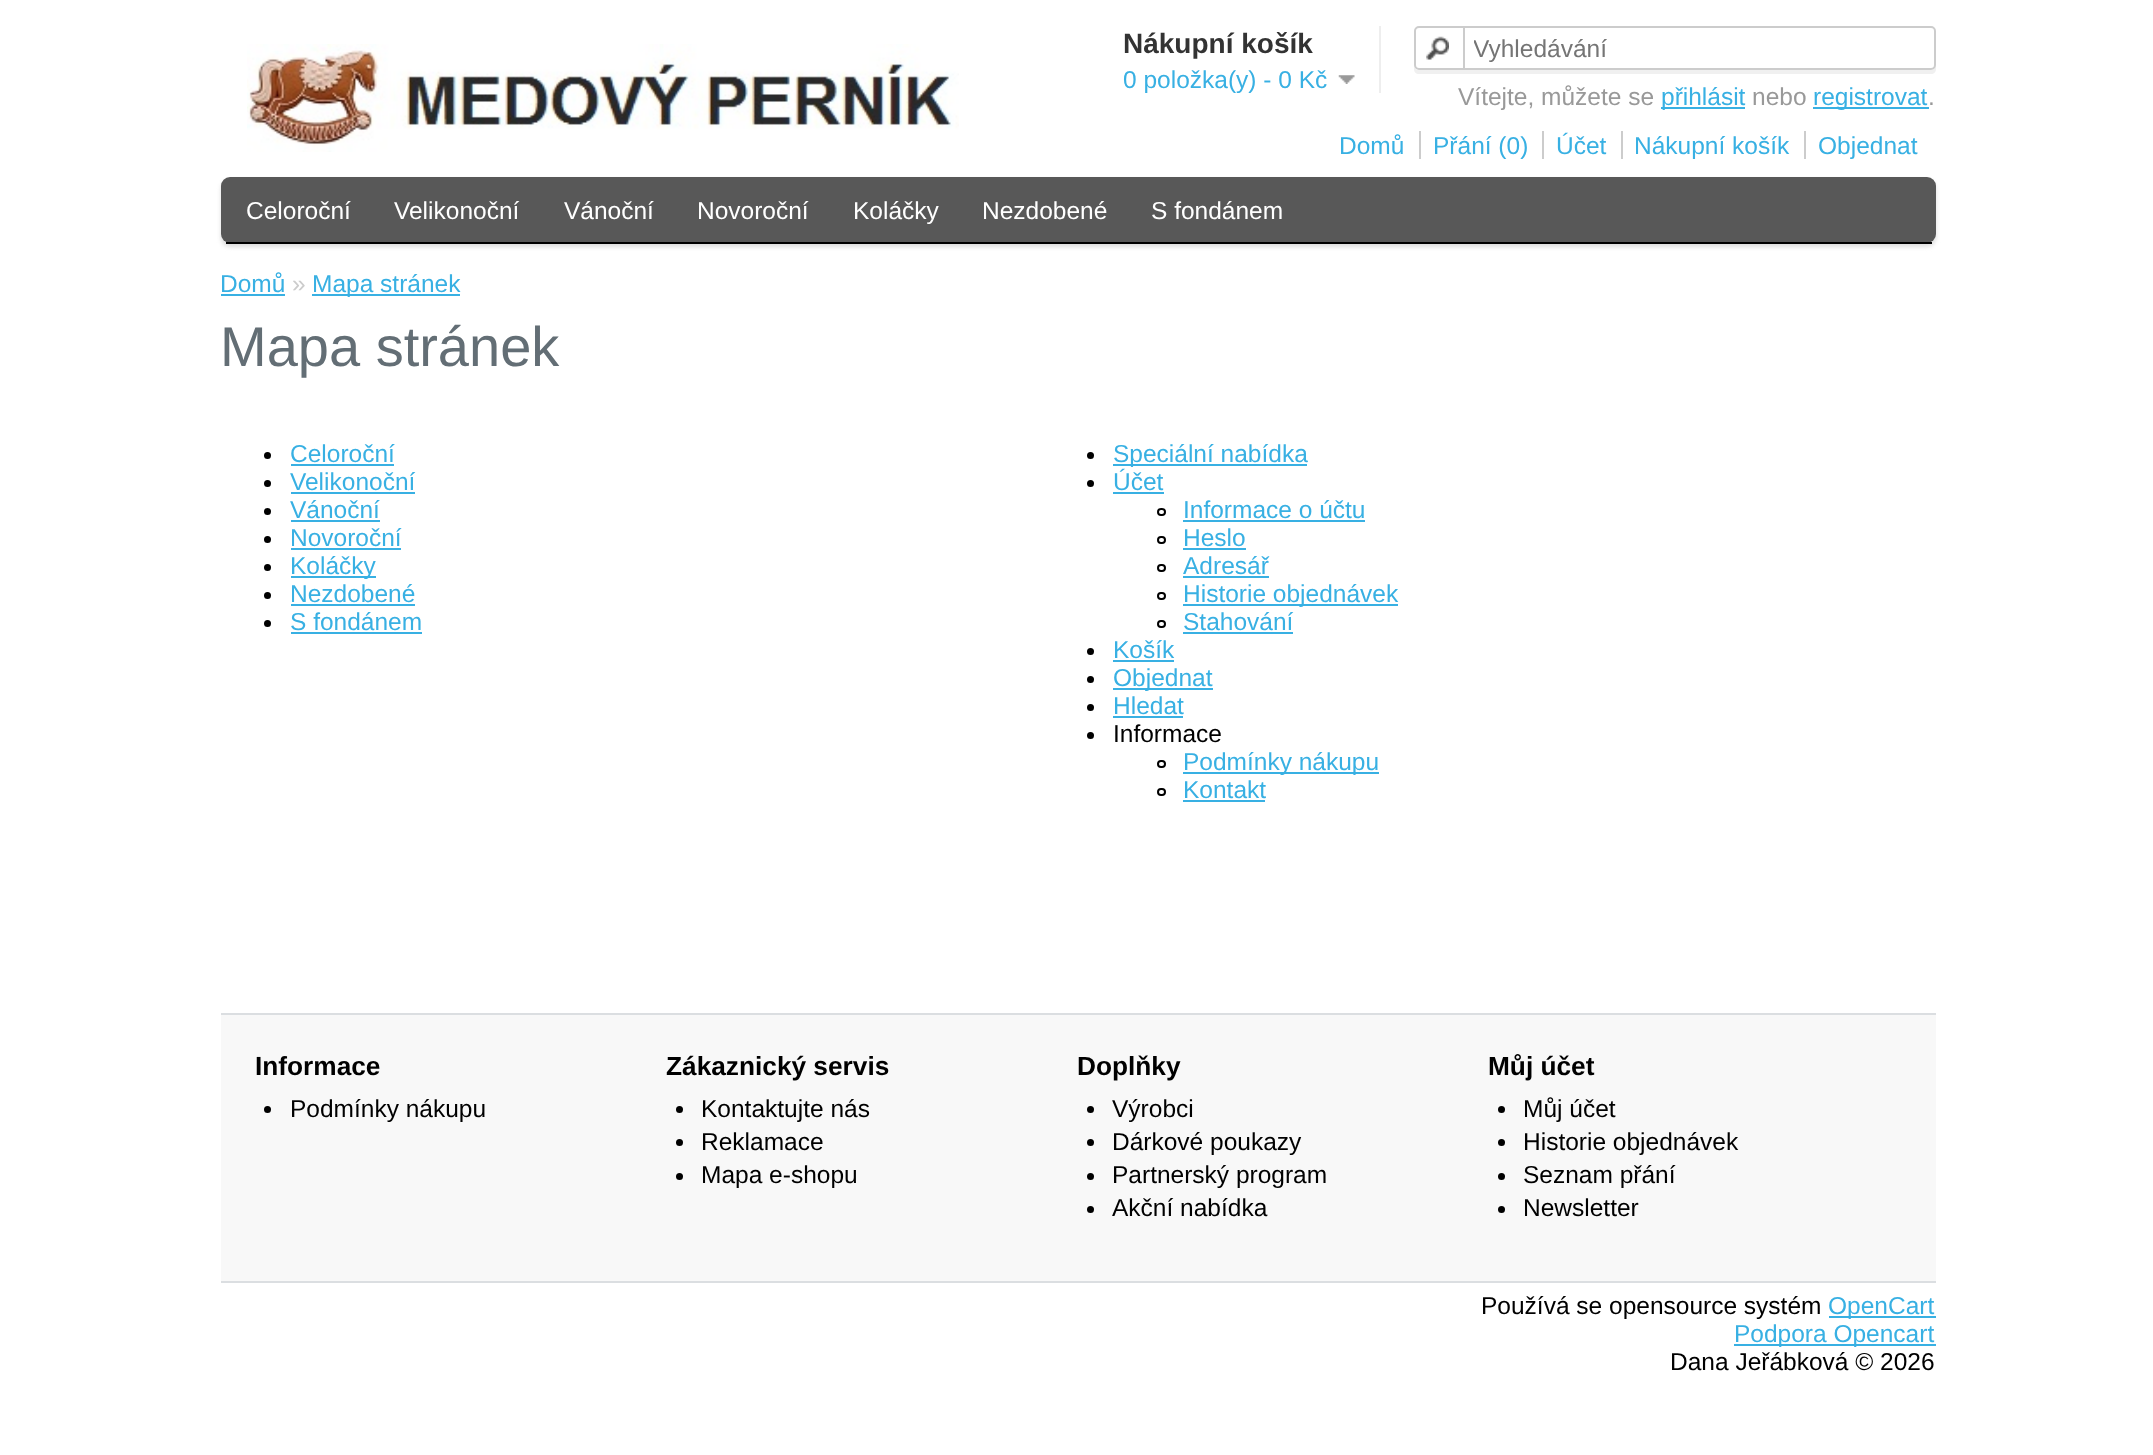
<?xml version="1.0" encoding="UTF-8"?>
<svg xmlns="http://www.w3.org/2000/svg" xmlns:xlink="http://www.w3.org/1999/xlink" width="2153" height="1455">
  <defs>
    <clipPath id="clip1"><rect x="1474" y="35" width="458" height="28" /></clipPath>
  </defs>
  <rect width="100%" height="100%" fill="#ffffff" />
  <image x="247" y="44" width="712" height="108" xlink:href="image1.png" />
  <rect x="1379" y="26" width="2" height="67" fill="#eeeeee" />
  <image x="1338" y="75" width="17" height="9" xlink:href="image2.png" />
  <path d="M 1414 65 v 4 c 0 3 2 5 5 5 h 512 c 3 0 5 -2 5 -5 v -34 v -2 v 32 c 0 3 -3 5 -6 5 h -511 c -3 0 -5 -2 -5 -5 z" fill="#f0f0f0" />
  <rect x="1415" y="27" width="520" height="42" rx="4" fill="#ffffff" stroke="#cccccc" stroke-width="2" />
  <image x="1426" y="36" width="23" height="24" xlink:href="image3.png" />
  <rect x="1463" y="26" width="2" height="42" fill="#cccccc" />
  <rect x="1661" y="107" width="84" height="2" fill="#38b0e3" />
  <rect x="1813" y="107" width="116" height="2" fill="#38b0e3" />
  <rect x="1419" y="131" width="2" height="28" fill="#cccccc" />
  <rect x="1542" y="131" width="2" height="28" fill="#cccccc" />
  <rect x="1621" y="131" width="2" height="28" fill="#cccccc" />
  <rect x="1804" y="131" width="2" height="28" fill="#cccccc" />
  <rect x="221" y="180" width="1715" height="67" rx="9" fill="#dddddd" filter="blur(2px)" />
  <rect x="221" y="177" width="1715" height="66" rx="9" fill="#585858" />
  <rect x="226" y="242" width="1706" height="2" fill="#000000" />
  <rect x="221" y="294" width="64" height="2" fill="#38b0e3" />
  <rect x="312" y="294" width="148" height="2" fill="#38b0e3" />
  <circle cx="267.5" cy="455.5" r="3.5" fill="#000000" />
  <rect x="291" y="464" width="103" height="2" fill="#38b0e3" />
  <circle cx="267.5" cy="483.5" r="3.5" fill="#000000" />
  <rect x="291" y="492" width="124" height="2" fill="#38b0e3" />
  <circle cx="267.5" cy="511.5" r="3.5" fill="#000000" />
  <rect x="291" y="520" width="89" height="2" fill="#38b0e3" />
  <circle cx="267.5" cy="539.5" r="3.5" fill="#000000" />
  <rect x="291" y="548" width="110" height="2" fill="#38b0e3" />
  <circle cx="267.5" cy="567.5" r="3.5" fill="#000000" />
  <rect x="291" y="576" width="85" height="2" fill="#38b0e3" />
  <circle cx="267.5" cy="595.5" r="3.5" fill="#000000" />
  <rect x="291" y="604" width="124" height="2" fill="#38b0e3" />
  <circle cx="267.5" cy="623.5" r="3.5" fill="#000000" />
  <rect x="291" y="632" width="131" height="2" fill="#38b0e3" />
  <circle cx="1090.5" cy="455.5" r="3.5" fill="#000000" />
  <rect x="1113" y="464" width="194" height="2" fill="#38b0e3" />
  <circle cx="1090.5" cy="483.5" r="3.5" fill="#000000" />
  <rect x="1113" y="492" width="51" height="2" fill="#38b0e3" />
  <rect x="1158" y="509" width="7" height="6" rx="3" fill="none" stroke="#000000" stroke-width="2" />
  <rect x="1183" y="520" width="182" height="2" fill="#38b0e3" />
  <rect x="1158" y="537" width="7" height="6" rx="3" fill="none" stroke="#000000" stroke-width="2" />
  <rect x="1183" y="548" width="63" height="2" fill="#38b0e3" />
  <rect x="1158" y="565" width="7" height="6" rx="3" fill="none" stroke="#000000" stroke-width="2" />
  <rect x="1183" y="576" width="86" height="2" fill="#38b0e3" />
  <rect x="1158" y="593" width="7" height="6" rx="3" fill="none" stroke="#000000" stroke-width="2" />
  <rect x="1183" y="604" width="215" height="2" fill="#38b0e3" />
  <rect x="1158" y="621" width="7" height="6" rx="3" fill="none" stroke="#000000" stroke-width="2" />
  <rect x="1183" y="632" width="110" height="2" fill="#38b0e3" />
  <circle cx="1090.5" cy="651.5" r="3.5" fill="#000000" />
  <rect x="1113" y="660" width="61" height="2" fill="#38b0e3" />
  <circle cx="1090.5" cy="679.5" r="3.5" fill="#000000" />
  <rect x="1113" y="688" width="100" height="2" fill="#38b0e3" />
  <circle cx="1090.5" cy="707.5" r="3.5" fill="#000000" />
  <rect x="1113" y="716" width="70" height="2" fill="#38b0e3" />
  <circle cx="1090.5" cy="735.5" r="3.5" fill="#000000" />
  <rect x="1158" y="761" width="7" height="6" rx="3" fill="none" stroke="#000000" stroke-width="2" />
  <rect x="1183" y="772" width="196" height="2" fill="#38b0e3" />
  <rect x="1158" y="789" width="7" height="6" rx="3" fill="none" stroke="#000000" stroke-width="2" />
  <rect x="1183" y="800" width="82" height="2" fill="#38b0e3" />
  <rect x="221" y="1015" width="1715" height="266" fill="#f8f8f8" />
  <rect x="221" y="1013" width="1715" height="2" fill="#dbdee1" />
  <rect x="221" y="1281" width="1715" height="2" fill="#dbdee1" />
  <circle cx="267.5" cy="1109.5" r="3.5" fill="#000000" />
  <circle cx="679.5" cy="1109.5" r="3.5" fill="#000000" />
  <circle cx="679.5" cy="1142.5" r="3.5" fill="#000000" />
  <circle cx="679.5" cy="1176.5" r="3.5" fill="#000000" />
  <circle cx="1090.5" cy="1109.5" r="3.5" fill="#000000" />
  <circle cx="1090.5" cy="1142.5" r="3.5" fill="#000000" />
  <circle cx="1090.5" cy="1176.5" r="3.5" fill="#000000" />
  <circle cx="1090.5" cy="1209.5" r="3.5" fill="#000000" />
  <circle cx="1501.5" cy="1109.5" r="3.5" fill="#000000" />
  <circle cx="1501.5" cy="1142.5" r="3.5" fill="#000000" />
  <circle cx="1501.5" cy="1176.5" r="3.5" fill="#000000" />
  <circle cx="1501.5" cy="1209.5" r="3.5" fill="#000000" />
  <rect x="1829" y="1316" width="107" height="2" fill="#38b0e3" />
  <rect x="1734" y="1344" width="202" height="2" fill="#38b0e3" />
  <text x="1123" y="53" style="font-family: Liberation Sans; font-size: 28px; font-weight: bold; fill: #333333">Nákupní košík</text>
  <text x="1123" y="88" style="font-family: Liberation Sans; font-size: 24.5px; fill: #38b0e3">0 položka(y) - 0 Kč</text>
  <g clip-path="url(#clip1)">
    <text x="1473" y="57" style="font-family: Liberation Sans; font-size: 24.5px; fill: #757575">Vyhledávání</text>
  </g>
  <text x="1458" y="105" style="font-family: Liberation Sans; font-size: 24.5px; fill: #999999">Vítejte, můžete se</text>
  <text x="1661" y="105" style="font-family: Liberation Sans; font-size: 24.5px; fill: #38b0e3">přihlásit</text>
  <text x="1752" y="105" style="font-family: Liberation Sans; font-size: 24.5px; fill: #999999">nebo</text>
  <text x="1813" y="105" style="font-family: Liberation Sans; font-size: 24.5px; fill: #38b0e3">registrovat</text>
  <text x="1928" y="105" style="font-family: Liberation Sans; font-size: 24.5px; fill: #999999">.</text>
  <text x="1339" y="154" style="font-family: Liberation Sans; font-size: 24.5px; fill: #38b0e3">Domů</text>
  <text x="1433" y="154" style="font-family: Liberation Sans; font-size: 24.5px; fill: #38b0e3">Přání (0)</text>
  <text x="1556" y="154" style="font-family: Liberation Sans; font-size: 24.5px; fill: #38b0e3">Účet</text>
  <text x="1634" y="154" style="font-family: Liberation Sans; font-size: 24.5px; fill: #38b0e3">Nákupní košík</text>
  <text x="1818" y="154" style="font-family: Liberation Sans; font-size: 24.5px; fill: #38b0e3">Objednat</text>
  <text x="246" y="219" style="font-family: Liberation Sans; font-size: 24.5px; fill: #ffffff">Celoroční</text>
  <text x="394" y="219" style="font-family: Liberation Sans; font-size: 24.5px; fill: #ffffff">Velikonoční</text>
  <text x="564" y="219" style="font-family: Liberation Sans; font-size: 24.5px; fill: #ffffff">Vánoční</text>
  <text x="697" y="219" style="font-family: Liberation Sans; font-size: 24.5px; fill: #ffffff">Novoroční</text>
  <text x="853" y="219" style="font-family: Liberation Sans; font-size: 24.5px; fill: #ffffff">Koláčky</text>
  <text x="982" y="219" style="font-family: Liberation Sans; font-size: 24.5px; fill: #ffffff">Nezdobené</text>
  <text x="1151" y="219" style="font-family: Liberation Sans; font-size: 24.5px; fill: #ffffff">S fondánem</text>
  <text x="220" y="292" style="font-family: Liberation Sans; font-size: 24.5px; fill: #38b0e3">Domů</text>
  <text x="292" y="292" style="font-family: Liberation Sans; font-size: 24.5px; fill: #cccccc">»</text>
  <text x="312" y="292" style="font-family: Liberation Sans; font-size: 24.5px; fill: #38b0e3">Mapa stránek</text>
  <text x="220" y="366" style="font-family: Liberation Sans; font-size: 56px; fill: #636e75">Mapa stránek</text>
  <text x="290" y="462" style="font-family: Liberation Sans; font-size: 24.5px; fill: #38b0e3">Celoroční</text>
  <text x="290" y="490" style="font-family: Liberation Sans; font-size: 24.5px; fill: #38b0e3">Velikonoční</text>
  <text x="290" y="518" style="font-family: Liberation Sans; font-size: 24.5px; fill: #38b0e3">Vánoční</text>
  <text x="290" y="546" style="font-family: Liberation Sans; font-size: 24.5px; fill: #38b0e3">Novoroční</text>
  <text x="290" y="574" style="font-family: Liberation Sans; font-size: 24.5px; fill: #38b0e3">Koláčky</text>
  <text x="290" y="602" style="font-family: Liberation Sans; font-size: 24.5px; fill: #38b0e3">Nezdobené</text>
  <text x="290" y="630" style="font-family: Liberation Sans; font-size: 24.5px; fill: #38b0e3">S fondánem</text>
  <text x="1113" y="462" style="font-family: Liberation Sans; font-size: 24.5px; fill: #38b0e3">Speciální nabídka</text>
  <text x="1113" y="490" style="font-family: Liberation Sans; font-size: 24.5px; fill: #38b0e3">Účet</text>
  <text x="1183" y="518" style="font-family: Liberation Sans; font-size: 24.5px; fill: #38b0e3">Informace o účtu</text>
  <text x="1183" y="546" style="font-family: Liberation Sans; font-size: 24.5px; fill: #38b0e3">Heslo</text>
  <text x="1183" y="574" style="font-family: Liberation Sans; font-size: 24.5px; fill: #38b0e3">Adresář</text>
  <text x="1183" y="602" style="font-family: Liberation Sans; font-size: 24.5px; fill: #38b0e3">Historie objednávek</text>
  <text x="1183" y="630" style="font-family: Liberation Sans; font-size: 24.5px; fill: #38b0e3">Stahování</text>
  <text x="1113" y="658" style="font-family: Liberation Sans; font-size: 24.5px; fill: #38b0e3">Košík</text>
  <text x="1113" y="686" style="font-family: Liberation Sans; font-size: 24.5px; fill: #38b0e3">Objednat</text>
  <text x="1113" y="714" style="font-family: Liberation Sans; font-size: 24.5px; fill: #38b0e3">Hledat</text>
  <text x="1113" y="742" style="font-family: Liberation Sans; font-size: 24.5px; fill: #000000">Informace</text>
  <text x="1183" y="770" style="font-family: Liberation Sans; font-size: 24.5px; fill: #38b0e3">Podmínky nákupu</text>
  <text x="1183" y="798" style="font-family: Liberation Sans; font-size: 24.5px; fill: #38b0e3">Kontakt</text>
  <text x="255" y="1075" style="font-family: Liberation Sans; font-size: 26.25px; font-weight: bold; fill: #000000">Informace</text>
  <text x="290" y="1117" style="font-family: Liberation Sans; font-size: 24.5px; fill: #000000">Podmínky nákupu</text>
  <text x="666" y="1075" style="font-family: Liberation Sans; font-size: 26.25px; font-weight: bold; fill: #000000">Zákaznický servis</text>
  <text x="701" y="1117" style="font-family: Liberation Sans; font-size: 24.5px; fill: #000000">Kontaktujte nás</text>
  <text x="701" y="1150" style="font-family: Liberation Sans; font-size: 24.5px; fill: #000000">Reklamace</text>
  <text x="701" y="1183" style="font-family: Liberation Sans; font-size: 24.5px; fill: #000000">Mapa e-shopu</text>
  <text x="1077" y="1075" style="font-family: Liberation Sans; font-size: 26.25px; font-weight: bold; fill: #000000">Doplňky</text>
  <text x="1112" y="1117" style="font-family: Liberation Sans; font-size: 24.5px; fill: #000000">Výrobci</text>
  <text x="1112" y="1150" style="font-family: Liberation Sans; font-size: 24.5px; fill: #000000">Dárkové poukazy</text>
  <text x="1112" y="1183" style="font-family: Liberation Sans; font-size: 24.5px; fill: #000000">Partnerský program</text>
  <text x="1112" y="1216" style="font-family: Liberation Sans; font-size: 24.5px; fill: #000000">Akční nabídka</text>
  <text x="1488" y="1075" style="font-family: Liberation Sans; font-size: 26.25px; font-weight: bold; fill: #000000">Můj účet</text>
  <text x="1523" y="1117" style="font-family: Liberation Sans; font-size: 24.5px; fill: #000000">Můj účet</text>
  <text x="1523" y="1150" style="font-family: Liberation Sans; font-size: 24.5px; fill: #000000">Historie objednávek</text>
  <text x="1523" y="1183" style="font-family: Liberation Sans; font-size: 24.5px; fill: #000000">Seznam přání</text>
  <text x="1523" y="1216" style="font-family: Liberation Sans; font-size: 24.5px; fill: #000000">Newsletter</text>
  <text x="1481" y="1314" style="font-family: Liberation Sans; font-size: 24.5px; fill: #000000">Používá se opensource systém</text>
  <text x="1828" y="1314" style="font-family: Liberation Sans; font-size: 24.5px; fill: #38b0e3">OpenCart</text>
  <text x="1734" y="1342" style="font-family: Liberation Sans; font-size: 24.5px; fill: #38b0e3">Podpora Opencart</text>
  <text x="1670" y="1370" style="font-family: Liberation Sans; font-size: 24.5px; fill: #000000">Dana Jeřábková © 2026</text>
</svg>
